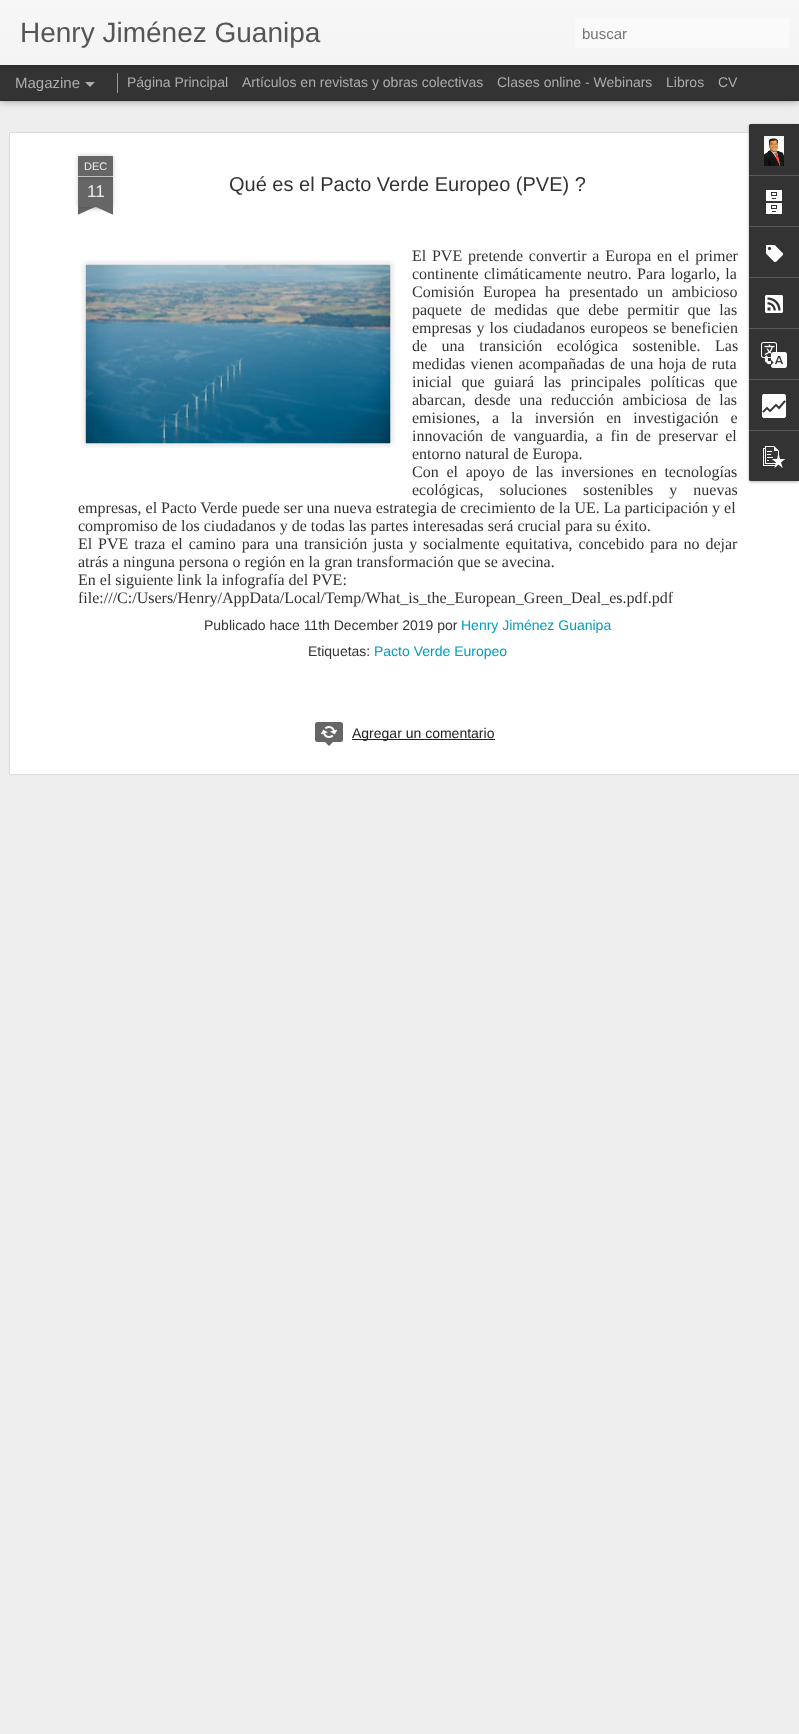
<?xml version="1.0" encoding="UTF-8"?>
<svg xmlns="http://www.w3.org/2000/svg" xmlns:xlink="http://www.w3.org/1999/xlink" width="799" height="1734">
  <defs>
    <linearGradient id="g1" gradientUnits="userSpaceOnUse" x1="0" y1="0" x2="0" y2="65"><stop offset="0" stop-color="#f7f7f7" /><stop offset="1" stop-color="#f4f4f4" /></linearGradient>
    <clipPath id="clip1"><rect x="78" y="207" width="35" height="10" /></clipPath>
    <clipPath id="clip2"><rect x="78" y="207" width="35" height="10" /></clipPath>
  </defs>
  <rect width="100%" height="100%" fill="#333333" />
  <rect y="101" width="799" height="1633" fill="#eeeeee" />
  <rect y="65" width="799" height="35" fill="#000000" fill-opacity="0.5" filter="blur(4px)" />
  <rect y="65" width="799" height="35" fill="#333333" />
  <rect x="117" y="73" width="1" height="20" fill="#999999" />
  <rect width="799" height="65" fill="#000000" fill-opacity="0.3" filter="blur(2.5px)" />
  <rect width="799" height="65" fill="url(#g1)" />
  <rect x="575" y="18" width="214" height="30" rx="3" fill="#fafafa" />
  <path d="M 85 82 h 10 l -5 5 z" fill="#adadad" />
  <rect x="8" y="131" width="791" height="645" fill="#ffffff" />
  <image x="8" y="131" width="791" height="645" xlink:href="image1.png" />
  <rect x="78" y="177" width="35" height="30" fill="#000000" fill-opacity="0.2" filter="blur(2.5px)" />
  <rect x="78" y="177" width="35" height="30" fill="#666666" />
  <rect x="78" y="156" width="35" height="21" rx="1" fill="#000000" fill-opacity="0.2" filter="blur(2.5px)" />
  <path d="M 79 156 h 33 c 0.5 0 1 0.5 1 1 v 20 h -35 v -20 c 0 -0.5 0.5 -1 1 -1 z" fill="#666666" />
  <rect x="78" y="176" width="35" height="1" fill="#c2c2c2" />
  <g clip-path="url(#clip1)">
    <rect x="69" y="197" width="50" height="10" fill="#000000" fill-opacity="0.2" filter="blur(2.5px)" />
  </g>
  <g clip-path="url(#clip2)">
    <path d="M 69 208 l 46 -21 l 4 9 l -46 21 z" fill="#666666" />
  </g>
  <g clip-path="url(#clip1)">
    <rect x="72" y="197" width="50" height="10" fill="#000000" fill-opacity="0.2" filter="blur(2.5px)" />
  </g>
  <g clip-path="url(#clip2)">
    <path d="M 76 187 l 46 21 l -4 9 l -46 -21 z" fill="#666666" />
  </g>
  <image x="81" y="260" width="314" height="188" xlink:href="image2.png" />
  <image x="85" y="264" width="306" height="180" xlink:href="image3.png" />
  <rect x="315" y="722" width="28" height="20" rx="3" fill="#666666" />
  <image x="321" y="726" width="16" height="12" xlink:href="image4.png" />
  <rect x="315.5" y="722.5" width="27" height="19" rx="2.5" fill="none" stroke="#666666" />
  <path d="M 324 741 h 10 l -5 5 z" fill="#666666" />
  <rect x="352" y="739" width="143" height="1" fill="#222222" />
  <rect x="749" y="125" width="50" height="357" rx="2" fill="#000000" fill-opacity="0.3" filter="blur(1.5px)" />
  <path d="M 751 124 h 48 v 357 h -48 c -1 0 -2 -1 -2 -2 v -353 c 0 -1 1 -2 2 -2 z" fill="#333333" />
  <path d="M 751 124 h 48 v 51 h -50 v -49 c 0 -1 1 -2 2 -2 z" fill="#333333" />
  <image x="764" y="136" width="20" height="30" xlink:href="image5.png" />
  <rect x="749" y="175" width="50" height="1" fill="#585858" />
  <image x="766" y="190" width="16" height="24" xlink:href="image6.png" />
  <rect x="749" y="226" width="50" height="1" fill="#585858" />
  <image x="766" y="245" width="17" height="17" xlink:href="image7.png" />
  <rect x="749" y="277" width="50" height="1" fill="#585858" />
  <image x="765" y="295" width="18" height="18" xlink:href="image8.png" />
  <rect x="749" y="328" width="50" height="1" fill="#585858" />
  <image x="761" y="342" width="26" height="26" xlink:href="image9.png" />
  <rect x="749" y="379" width="50" height="1" fill="#585858" />
  <image x="762" y="394" width="24" height="24" xlink:href="image10.png" />
  <path d="M 749 430 h 50 v 51 h -48 c -1 0 -2 -1 -2 -2 z" fill="#333333" />
  <rect x="749" y="430" width="50" height="1" fill="#585858" />
  <image x="763" y="446" width="22" height="22" xlink:href="image11.png" />
  <text x="20" y="42" style="font-family: Liberation Sans; font-size: 28px; fill: #555555">Henry Jiménez Guanipa</text>
  <text x="582" y="39" style="font-family: Liberation Sans; font-size: 15px; fill: #757575">buscar</text>
  <text x="15" y="88" style="font-family: Liberation Sans; font-size: 15px; fill: #adadad">Magazine</text>
  <text x="127" y="87" style="font-family: Liberation Sans; font-size: 14px; fill: #adadad">Página Principal</text>
  <text x="242" y="87" style="font-family: Liberation Sans; font-size: 14px; fill: #adadad">Artículos en revistas y obras colectivas</text>
  <text x="497" y="87" style="font-family: Liberation Sans; font-size: 14px; fill: #adadad">Clases online - Webinars</text>
  <text x="666" y="87" style="font-family: Liberation Sans; font-size: 14px; fill: #adadad">Libros</text>
  <text x="718" y="87" style="font-family: Liberation Sans; font-size: 14px; fill: #adadad">CV</text>
  <text x="84" y="170" style="font-family: Liberation Sans; font-size: 11px; fill: #eeeeee">DEC</text>
  <text x="87" y="197" style="font-family: Liberation Sans; font-size: 17px; fill: #eeeeee">11</text>
  <text x="229" y="191" style="font-family: Liberation Sans; font-size: 20px; fill: #333333">Qué es el Pacto Verde Europeo (PVE) ?</text>
  <text x="412" y="261" word-spacing="1.75" style="font-family: Liberation Serif; font-size: 16px; fill: #333333">El PVE pretende convertir a Europa en el primer</text>
  <text x="412" y="279" word-spacing="1.25" style="font-family: Liberation Serif; font-size: 16px; fill: #333333">continente climáticamente neutro. Para logarlo, la</text>
  <text x="412" y="297" word-spacing="4.75" style="font-family: Liberation Serif; font-size: 16px; fill: #333333">Comisión Europea ha presentado un ambicioso</text>
  <text x="412" y="315" word-spacing="4.75" style="font-family: Liberation Serif; font-size: 16px; fill: #333333">paquete de medidas que debe permitir que las</text>
  <text x="412" y="333" word-spacing="1" style="font-family: Liberation Serif; font-size: 16px; fill: #333333">empresas y los ciudadanos europeos se beneficien</text>
  <text x="412" y="351" word-spacing="10.5" style="font-family: Liberation Serif; font-size: 16px; fill: #333333">de una transición ecológica sostenible. Las</text>
  <text x="412" y="369" word-spacing="1.25" style="font-family: Liberation Serif; font-size: 16px; fill: #333333">medidas vienen acompañadas de una hoja de ruta</text>
  <text x="412" y="387" word-spacing="5.5" style="font-family: Liberation Serif; font-size: 16px; fill: #333333">inicial que guiará las principales políticas que</text>
  <text x="412" y="405" word-spacing="4.5" style="font-family: Liberation Serif; font-size: 16px; fill: #333333">abarcan, desde una reducción ambiciosa de las</text>
  <text x="412" y="423" word-spacing="8" style="font-family: Liberation Serif; font-size: 16px; fill: #333333">emisiones, a la inversión en investigación e</text>
  <text x="412" y="441" word-spacing="3.5" style="font-family: Liberation Serif; font-size: 16px; fill: #333333">innovación de vanguardia, a fin de preservar el</text>
  <text x="412" y="459" style="font-family: Liberation Serif; font-size: 16px; fill: #333333">entorno natural de Europa.</text>
  <text x="412" y="477" word-spacing="3.75" style="font-family: Liberation Serif; font-size: 16px; fill: #333333">Con el apoyo de las inversiones en tecnologías</text>
  <text x="412" y="495" word-spacing="12" style="font-family: Liberation Serif; font-size: 16px; fill: #333333">ecológicas, soluciones sostenibles y nuevas</text>
  <text x="78" y="513" style="font-family: Liberation Serif; font-size: 16px; fill: #333333">empresas, el Pacto Verde puede ser una nueva estrategia de crecimiento de la UE. La participación y el</text>
  <text x="78" y="531" style="font-family: Liberation Serif; font-size: 16px; fill: #333333">compromiso de los ciudadanos y de todas las partes interesadas será crucial para su éxito.</text>
  <text x="78" y="549" word-spacing="1.9" style="font-family: Liberation Serif; font-size: 16px; fill: #333333">El PVE traza el camino para una transición justa y socialmente equitativa, concebido para no dejar</text>
  <text x="78" y="567" style="font-family: Liberation Serif; font-size: 16px; fill: #333333">atrás a ninguna persona o región en la gran transformación que se avecina.</text>
  <text x="78" y="585" style="font-family: Liberation Serif; font-size: 16px; fill: #333333">En el siguiente link la infografía del PVE:</text>
  <text x="78" y="603" style="font-family: Liberation Serif; font-size: 16px; fill: #333333">file:///C:/Users/Henry/AppData/Local/Temp/What_is_the_European_Green_Deal_es.pdf.pdf</text>
  <text x="204" y="630" style="font-family: Liberation Sans; font-size: 14px; fill: #333333">Publicado hace 11th December 2019 por</text>
  <text x="461" y="630" style="font-family: Liberation Sans; font-size: 14px; fill: #009eb8">Henry Jiménez Guanipa</text>
  <text x="308" y="656" style="font-family: Liberation Sans; font-size: 14px; fill: #333333">Etiquetas:</text>
  <text x="374" y="656" style="font-family: Liberation Sans; font-size: 14px; fill: #009eb8">Pacto Verde Europeo</text>
  <text x="352" y="738" style="font-family: Liberation Sans; font-size: 14px; fill: #222222">Agregar un comentario</text>
</svg>
